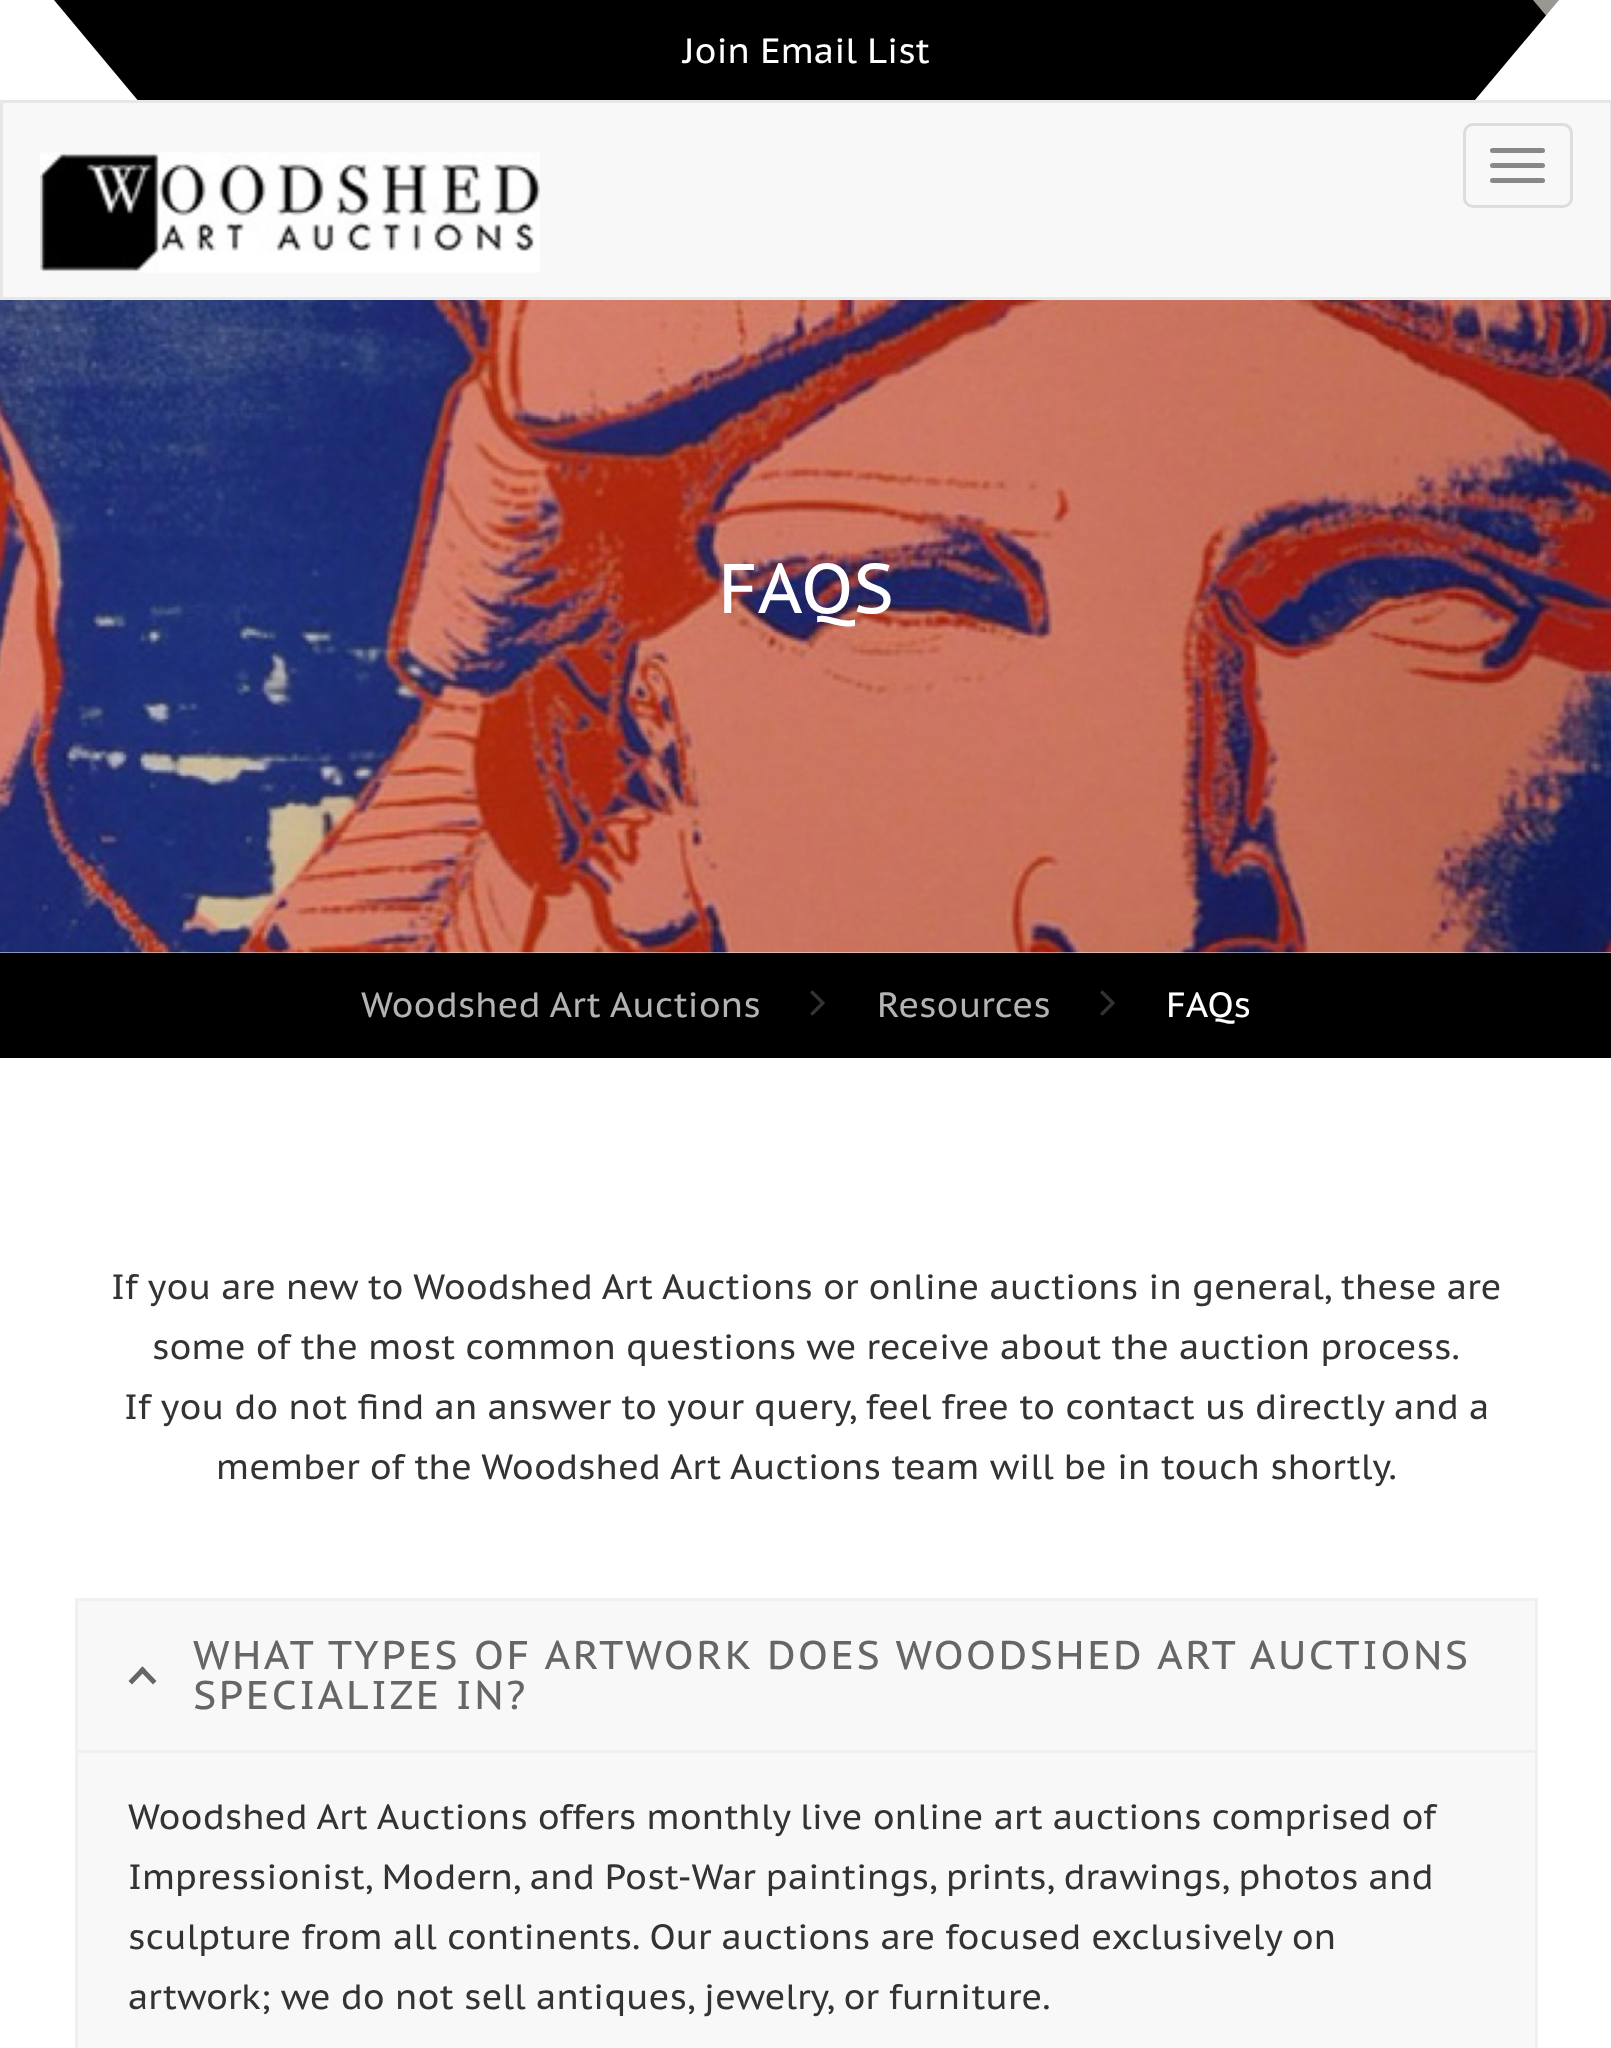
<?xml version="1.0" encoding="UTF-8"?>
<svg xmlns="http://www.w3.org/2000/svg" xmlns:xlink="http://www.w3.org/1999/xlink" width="1611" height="2048">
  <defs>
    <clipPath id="clip1"><rect x="38" width="1537" height="100" /></clipPath>
  </defs>
  <rect width="100%" height="100%" fill="#ffffff" />
  <rect x="1533" width="26" height="16" fill="#9a9692" />
  <g clip-path="url(#clip1)">
    <path d="M -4 0 h 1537 l 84 100 h -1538 z" fill="#000000" />
    <path d="M -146 0 h 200 l 167 200 h -200 z" fill="#ffffff" />
    <path d="M 1559 0 h 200 l -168 200 h -200 z" fill="#ffffff" />
  </g>
  <rect x="1.5" y="101.5" width="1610" height="197" fill="#f8f8f8" stroke="#e7e7e7" stroke-width="3" />
  <image x="40" y="152" width="500" height="121" xlink:href="image1.png" />
  <rect x="1464.5" y="124.5" width="107" height="82" rx="8.5" fill="none" stroke="#dddddd" stroke-width="3" />
  <rect x="1490" y="148" width="55" height="5" rx="2.5" fill="#888888" />
  <rect x="1490" y="163" width="55" height="5" rx="2.5" fill="#888888" />
  <rect x="1490" y="178" width="55" height="5" rx="2.5" fill="#888888" />
  <image x="0" y="300" width="1611" height="653" xlink:href="image2.png" />
  <rect y="953" width="1611" height="105" fill="#000000" />
  <image x="810" y="990" width="15" height="26" xlink:href="image3.png" />
  <image x="1100" y="990" width="15" height="26" xlink:href="image3.png" />
  <rect x="76.5" y="1599.5" width="1460" height="152" fill="#f8f8f8" stroke="#f0f0f0" stroke-width="3" />
  <path d="M 132 1684.5 l -3.5 -3.5 l 14 -14.5 l 3.5 3.5 z" fill="#666666" />
  <path d="M 153 1684.5 l -14 -14.5 l 3.5 -3.5 l 14 14.5 z" fill="#666666" />
  <rect x="76.5" y="1751.5" width="1460" height="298" fill="#f8f8f8" stroke="#f0f0f0" stroke-width="3" />
  <text x="683" y="63" style="font-family: PT Sans Caption; font-size: 35px; fill: #ffffff">Join Email List</text>
  <text x="718" y="613" style="font-family: PT Sans Caption; font-size: 70px; fill: #ffffff">FAQS</text>
  <text x="361" y="1017" style="font-family: PT Sans Caption; font-size: 35px; fill: #b3b3b3">Woodshed Art Auctions</text>
  <text x="877" y="1017" style="font-family: PT Sans Caption; font-size: 35px; fill: #b3b3b3">Resources</text>
  <text x="1166" y="1017" style="font-family: PT Sans Caption; font-size: 35px; fill: #ffffff">FAQs</text>
  <text x="111" y="1299" style="font-family: PT Sans Caption; font-size: 35px; fill: #333333">If you are new to Woodshed Art Auctions or online auctions in general, these are</text>
  <text x="152" y="1359" style="font-family: PT Sans Caption; font-size: 35px; fill: #333333">some of the most common questions we receive about the auction process.</text>
  <text x="124" y="1419" style="font-family: PT Sans Caption; font-size: 35px; fill: #333333">If you do not find an answer to your query, feel free to contact us directly and a</text>
  <text x="216" y="1479" style="font-family: PT Sans Caption; font-size: 35px; fill: #333333">member of the Woodshed Art Auctions team will be in touch shortly.</text>
  <text x="193" y="1669" style="font-family: PT Sans Caption; font-size: 40px; letter-spacing: 2.5px; fill: #666666">WHAT TYPES OF ARTWORK DOES WOODSHED ART AUCTIONS</text>
  <text x="193" y="1709" style="font-family: PT Sans Caption; font-size: 40px; letter-spacing: 2.5px; fill: #666666">SPECIALIZE IN?</text>
  <text x="128" y="1829" style="font-family: PT Sans Caption; font-size: 35px; fill: #333333">Woodshed Art Auctions offers monthly live online art auctions comprised of</text>
  <text x="128" y="1889" style="font-family: PT Sans Caption; font-size: 35px; fill: #333333">Impressionist, Modern, and Post-War paintings, prints, drawings, photos and</text>
  <text x="128" y="1949" style="font-family: PT Sans Caption; font-size: 35px; fill: #333333">sculpture from all continents. Our auctions are focused exclusively on</text>
  <text x="128" y="2009" style="font-family: PT Sans Caption; font-size: 35px; fill: #333333">artwork; we do not sell antiques, jewelry, or furniture.</text>
</svg>
